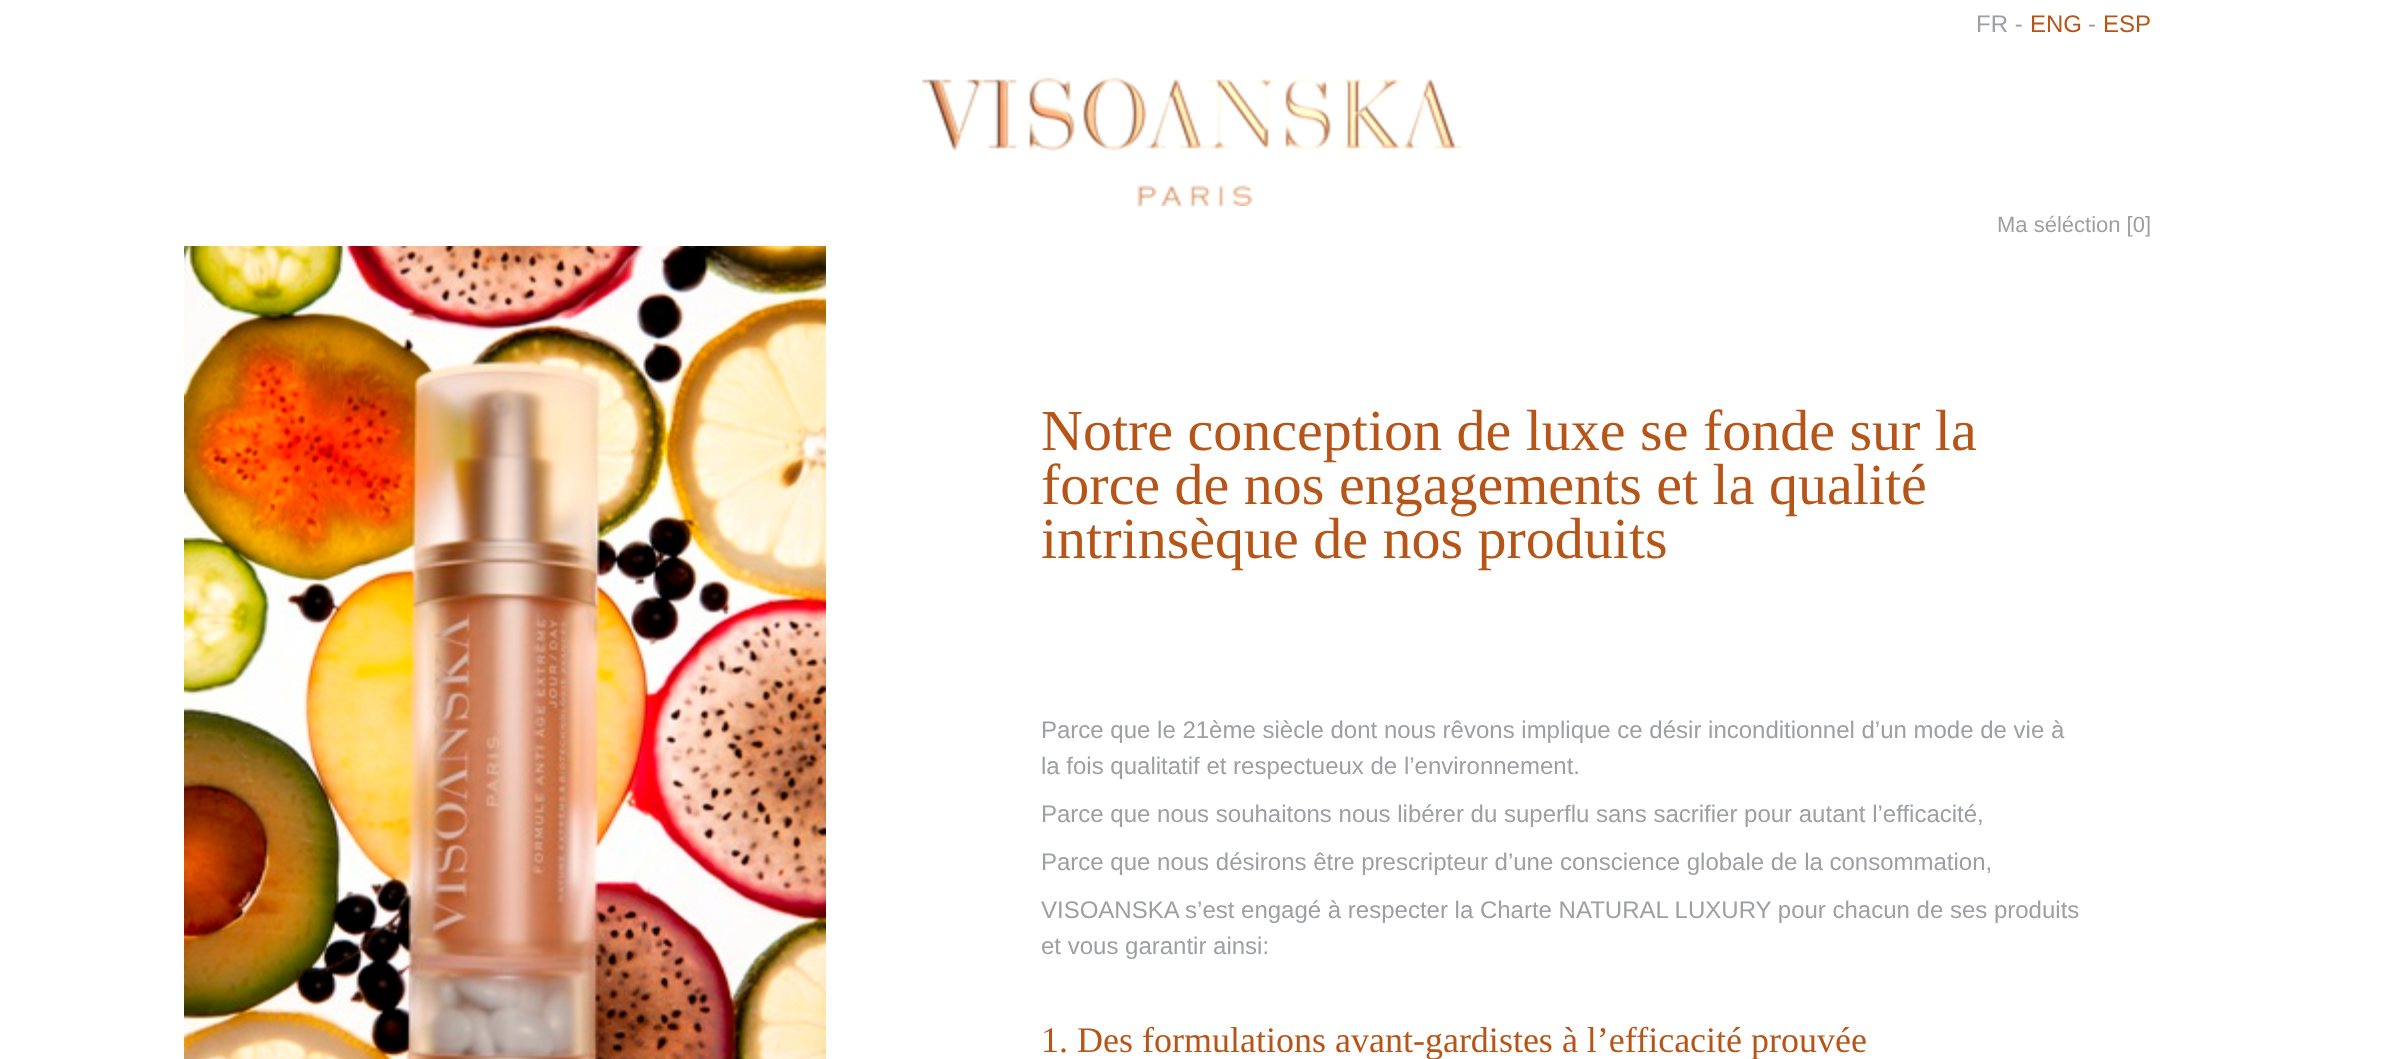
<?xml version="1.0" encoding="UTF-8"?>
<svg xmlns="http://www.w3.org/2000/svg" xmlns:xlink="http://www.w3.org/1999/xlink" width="2381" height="1059">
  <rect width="100%" height="100%" fill="#ffffff" />
  <image x="922" y="78" width="540" height="128" xlink:href="image1.png" />
  <image x="184" y="246" width="642" height="813" xlink:href="image2.png" />
  <text x="1976" y="32" style="font-family: Liberation Sans; font-size: 24px; fill: #9d9fa3">FR -</text>
  <text x="2030" y="32" style="font-family: Liberation Sans; font-size: 24px; fill: #b75519">ENG</text>
  <text x="2088" y="32" style="font-family: Liberation Sans; font-size: 24px; fill: #9d9fa3">-</text>
  <text x="2103" y="32" style="font-family: Liberation Sans; font-size: 24px; fill: #b75519">ESP</text>
  <text x="1997" y="232" style="font-family: Liberation Sans; font-size: 22px; fill: #9d9fa3">Ma séléction [0]</text>
  <text x="1041" y="450" style="font-family: Liberation Serif; font-size: 58px; fill: #b75519">Notre conception de luxe se fonde sur la</text>
  <text x="1041" y="504" style="font-family: Liberation Serif; font-size: 58px; fill: #b75519">force de nos engagements et la qualité</text>
  <text x="1041" y="558" style="font-family: Liberation Serif; font-size: 58px; fill: #b75519">intrinsèque de nos produits</text>
  <text x="1041" y="738" style="font-family: Liberation Sans; font-size: 24px; fill: #9d9fa3">Parce que le 21ème siècle dont nous rêvons implique ce désir inconditionnel d’un mode de vie à</text>
  <text x="1041" y="774" style="font-family: Liberation Sans; font-size: 24px; fill: #9d9fa3">la fois qualitatif et respectueux de l’environnement.</text>
  <text x="1041" y="822" style="font-family: Liberation Sans; font-size: 24px; fill: #9d9fa3">Parce que nous souhaitons nous libérer du superflu sans sacrifier pour autant l’efficacité,</text>
  <text x="1041" y="870" style="font-family: Liberation Sans; font-size: 24px; fill: #9d9fa3">Parce que nous désirons être prescripteur d’une conscience globale de la consommation,</text>
  <text x="1041" y="918" style="font-family: Liberation Sans; font-size: 24px; fill: #9d9fa3">VISOANSKA s’est engagé à respecter la Charte NATURAL LUXURY pour chacun de ses produits</text>
  <text x="1041" y="954" style="font-family: Liberation Sans; font-size: 24px; fill: #9d9fa3">et vous garantir ainsi:</text>
  <text x="1041" y="1052" style="font-family: Liberation Serif; font-size: 36px; fill: #b75519">1. Des formulations avant-gardistes à l’efficacité prouvée</text>
</svg>
